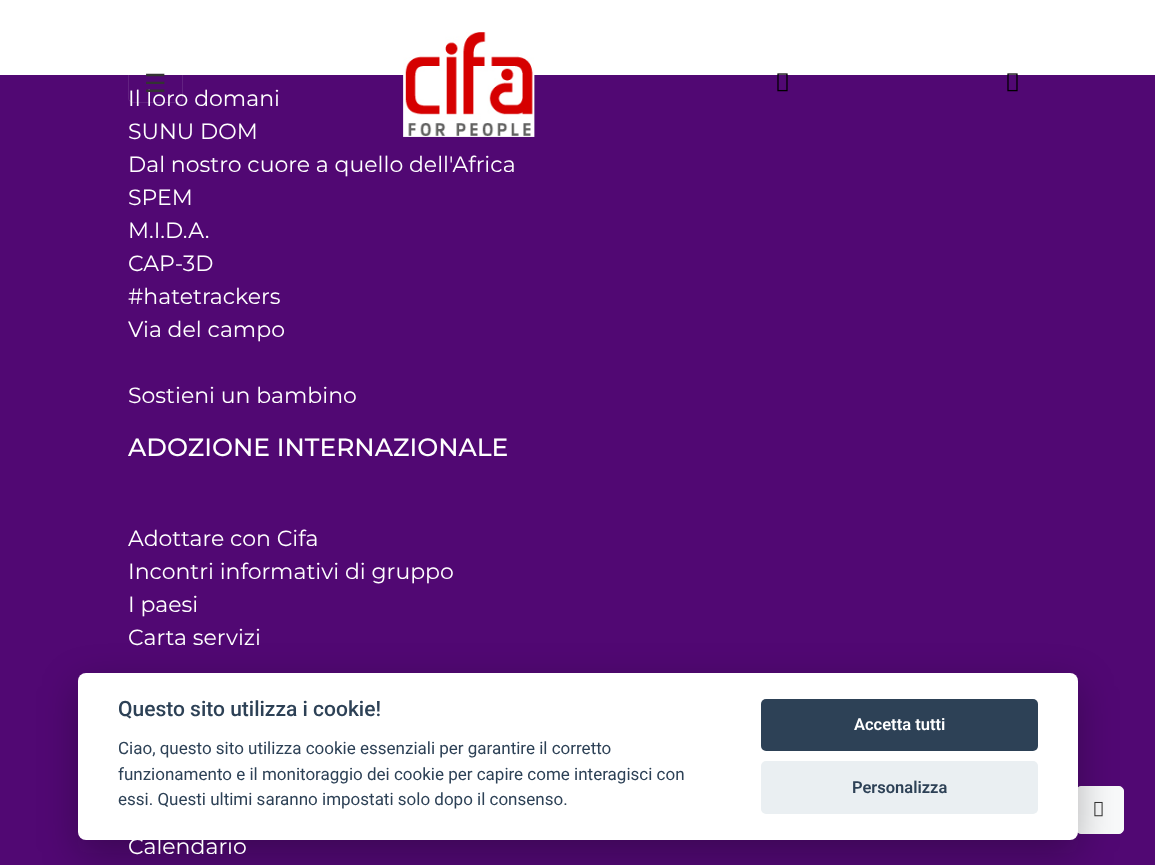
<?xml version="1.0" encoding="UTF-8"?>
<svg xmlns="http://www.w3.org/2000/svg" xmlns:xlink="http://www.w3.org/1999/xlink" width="1155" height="865">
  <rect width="100%" height="100%" fill="#510873" />
  <rect width="1155" height="75" fill="#ffffff" />
  <image x="403" y="32" width="132" height="105" xlink:href="image1.png" />
  <image x="777" y="73" width="11" height="19" xlink:href="image2.png" />
  <image x="1007" y="73" width="11" height="19" xlink:href="image2.png" />
  <rect x="1076.5" y="786.5" width="47" height="47" rx="4.5" fill="#f8f9fa" stroke="#f8f9fa" />
  <image x="1094" y="801" width="9" height="16" xlink:href="image3.png" />
  <rect x="78" y="685" width="1000" height="168" rx="8" fill="#020203" fill-opacity="0.28" filter="blur(19px)" />
  <rect x="78" y="673" width="1000" height="167" rx="8" fill="#ffffff" />
  <rect x="761" y="699" width="277" height="52" rx="5" fill="#2d4156" />
  <rect x="761" y="761" width="277" height="53" rx="5" fill="#eaeff2" />
  <text x="128" y="106" style="font-family: Montserrat; font-size: 22px; fill: #ffffff">Il loro domani</text>
  <rect x="128.5" y="65.5" width="54" height="37" rx="4.5" fill="none" stroke="#ffffff" stroke-opacity="0.1" />
  <text x="144" y="92" style="font-family: DejaVu Sans; font-size: 25px; fill: #333333">☰</text>
  <text x="128" y="139" style="font-family: Montserrat; font-size: 22px; fill: #ffffff">SUNU DOM</text>
  <text x="128" y="172" style="font-family: Montserrat; font-size: 22px; fill: #ffffff">Dal nostro cuore a quello dell'Africa</text>
  <text x="128" y="205" style="font-family: Montserrat; font-size: 22px; fill: #ffffff">SPEM</text>
  <text x="128" y="238" style="font-family: Montserrat; font-size: 22px; fill: #ffffff">M.I.D.A.</text>
  <text x="128" y="271" style="font-family: Montserrat; font-size: 22px; fill: #ffffff">CAP-3D</text>
  <text x="128" y="304" style="font-family: Montserrat; font-size: 22px; fill: #ffffff">#hatetrackers</text>
  <text x="128" y="337" style="font-family: Montserrat; font-size: 22px; fill: #ffffff">Via del campo</text>
  <text x="128" y="403" style="font-family: Montserrat; font-size: 22px; fill: #ffffff">Sostieni un bambino</text>
  <text x="128" y="456" style="font-family: Montserrat; font-size: 25px; font-weight: 500; fill: #ffffff">ADOZIONE INTERNAZIONALE</text>
  <text x="128" y="546" style="font-family: Montserrat; font-size: 22px; fill: #ffffff">Adottare con Cifa</text>
  <text x="128" y="579" style="font-family: Montserrat; font-size: 22px; fill: #ffffff">Incontri informativi di gruppo</text>
  <text x="128" y="612" style="font-family: Montserrat; font-size: 22px; fill: #ffffff">I paesi</text>
  <text x="128" y="645" style="font-family: Montserrat; font-size: 22px; fill: #ffffff">Carta servizi</text>
  <text x="128" y="854" style="font-family: Montserrat; font-size: 22px; fill: #ffffff">Calendario</text>
  <text x="118" y="716" style="font-family: Roboto; font-size: 21px; font-weight: 500; fill: #2d4156">Questo sito utilizza i cookie!</text>
  <text x="118" y="754" style="font-family: Roboto; font-size: 17px; fill: #2d4156">Ciao, questo sito utilizza cookie essenziali per garantire il corretto</text>
  <text x="118" y="780" style="font-family: Roboto; font-size: 17px; fill: #2d4156">funzionamento e il monitoraggio dei cookie per capire come interagisci con</text>
  <text x="118" y="805" style="font-family: Roboto; font-size: 17px; fill: #2d4156">essi. Questi ultimi saranno impostati solo dopo il consenso.</text>
  <text x="854" y="730" style="font-family: Roboto; font-size: 16.5px; font-weight: 600; fill: #ffffff">Accetta tutti</text>
  <text x="852" y="793" style="font-family: Roboto; font-size: 16.5px; font-weight: 600; fill: #2d4156">Personalizza</text>
</svg>
